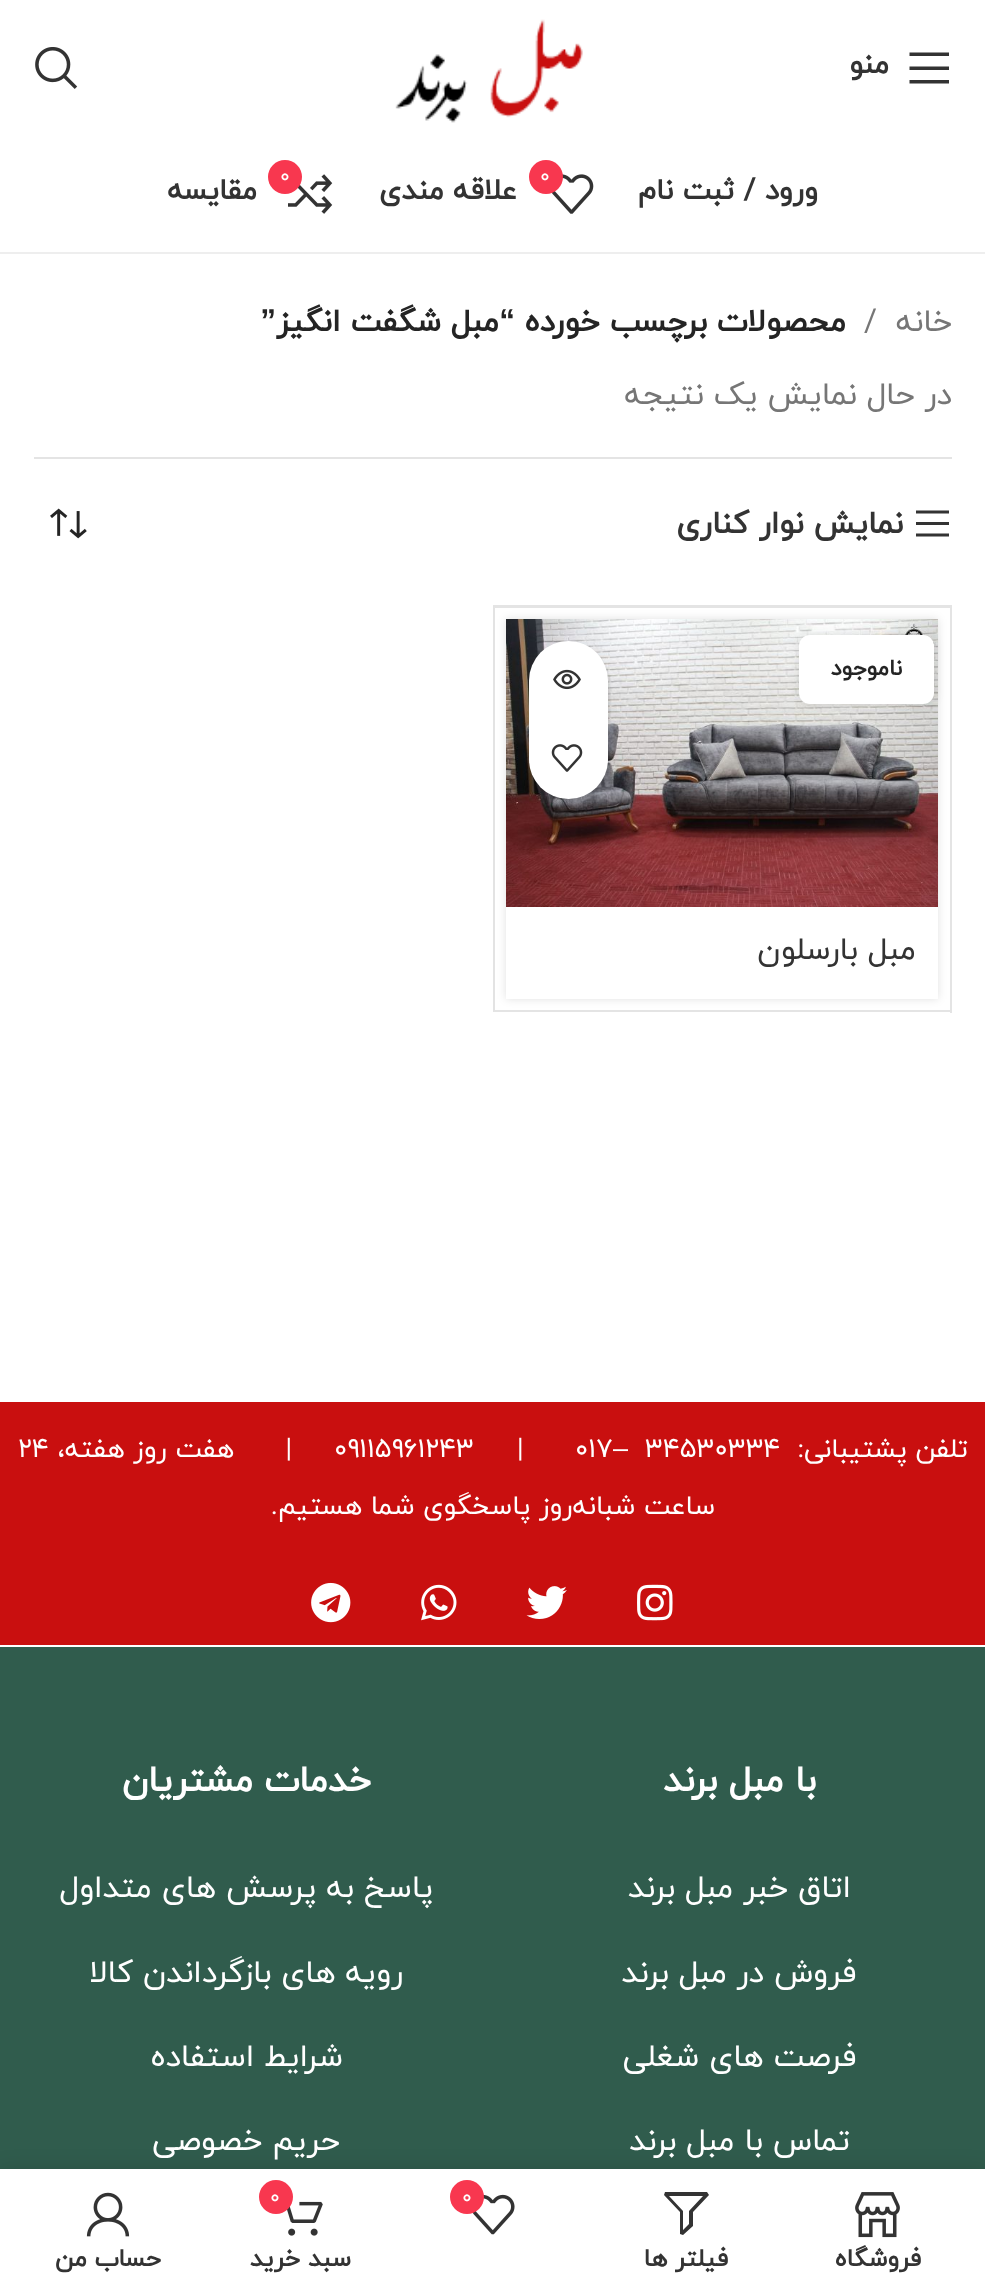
<?xml version="1.0" encoding="UTF-8"?>
<svg xmlns="http://www.w3.org/2000/svg" xmlns:xlink="http://www.w3.org/1999/xlink" width="985" height="2291">
  <rect width="100%" height="100%" fill="#ffffff" />
  <path d="M 909.5 56 h 39.5 v -3.5 h -39.5 z m 0 14 h 39.5 v -3.5 h -39.5 z m 0 13.5 h 39.5 v -3.5 h -39.5 z" fill="#333333" />
  <image x="395" y="19" width="188" height="104" xlink:href="image1.png" />
  <image x="35" y="47" width="43" height="42" xlink:href="image2.png" />
  <rect y="252" width="985" height="2" fill="#eeeeee" />
  <image x="551" y="174" width="43" height="40" xlink:href="image3.png" />
  <circle cx="546" cy="177" r="17" fill="#f8374f" />
  <image x="288" y="174" width="45" height="40" xlink:href="image4.png" />
  <circle cx="285" cy="177" r="17" fill="#f8374f" />
  <rect x="34" y="457" width="918" height="2" fill="#e4e4e4" />
  <path d="M 916 513.5 h 33 v -3 h -33 z m 0 11.5 h 33 v -3 h -33 z m 0 11.5 h 33 v -3 h -33 z" fill="#333333" />
  <image x="50" y="508" width="37" height="31" xlink:href="image5.png" />
  <rect x="950" y="605" width="2" height="408" fill="#e4e4e4" />
  <path d="M 493 605 h 457 v 3 h -455 z" fill="#e4e4e4" />
  <path d="M 950 1012 h -457 l 2 -2 h 455 z" fill="#e4e4e4" />
  <path d="M 493 1012 v -407 l 2 3 v 402 z" fill="#000000" fill-opacity="0.11" />
  <rect x="506" y="619" width="432" height="380" fill="#000000" fill-opacity="0.12" filter="blur(4.5px)" />
  <rect x="506" y="907" width="432" height="92" fill="#ffffff" />
  <image x="506" y="619" width="432" height="288" xlink:href="image6.png" />
  <rect x="799" y="635" width="135" height="69" rx="11" fill="#000000" fill-opacity="0.1" filter="blur(5.5px)" />
  <rect x="799" y="635" width="135" height="69" rx="11" fill="#ffffff" />
  <rect x="531" y="644" width="79" height="157" rx="39.5" fill="#000000" fill-opacity="0.1" filter="blur(1px)" />
  <rect x="529" y="641" width="79" height="158" rx="39.5" fill="#ffffff" />
  <image x="553" y="669" width="28" height="21" xlink:href="image7.png" />
  <image x="551" y="744" width="32" height="28" xlink:href="image8.png" />
  <rect y="1402" width="985" height="243" fill="#c90f0f" />
  <image x="637" y="1584" width="36" height="37" xlink:href="image9.png" />
  <image x="526" y="1586" width="41" height="33" xlink:href="image10.png" />
  <image x="421" y="1584" width="36" height="37" xlink:href="image11.png" />
  <image x="311" y="1582" width="40" height="41" xlink:href="image12.png" />
  <rect y="1647" width="985" height="522" fill="#305c4d" />
  <rect y="2169" width="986" height="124" fill="#000000" fill-opacity="0.12" filter="blur(10px)" />
  <rect y="2169" width="985" height="122" fill="#ffffff" />
  <image x="472" y="2194" width="43" height="41" xlink:href="image13.png" />
  <circle cx="467" cy="2197" r="17" fill="#f8374f" />
  <image x="287" y="2201" width="36" height="35" xlink:href="image14.png" />
  <circle cx="276" cy="2197" r="17" fill="#f8374f" />
  <image x="855" y="2192" width="45" height="46" xlink:href="image15.png" />
  <path d="M 665 2192 l -1 3 l 16 17 v 22 l 3 1 l 10 -9 v -14 l 16 -17 l -2 -3 z m 4 4 h 34 l -14 15 v 13 l -6 6 v -19 z" fill="#333333" />
  <image x="86" y="2192" width="44" height="45" xlink:href="image16.png" />
  <text x="889" y="73" style="font-family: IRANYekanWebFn; font-size: 29.25px; font-weight: bold; direction: rtl; fill: #333333">منو</text>
  <text x="818" y="199" style="font-family: IRANYekanWebFn; font-size: 29.25px; font-weight: bold; direction: rtl; fill: #333333">ورود / ثبت نام</text>
  <text x="540" y="182" style="font-family: IRANYekanWebFn; font-size: 20px; fill: #ffffff">0</text>
  <text x="517" y="199" style="font-family: IRANYekanWebFn; font-size: 29.25px; font-weight: bold; direction: rtl; fill: #333333">علاقه مندی</text>
  <text x="280" y="182" style="font-family: IRANYekanWebFn; font-size: 20px; fill: #ffffff">0</text>
  <text x="257" y="199" style="font-family: IRANYekanWebFn; font-size: 29.25px; font-weight: bold; direction: rtl; fill: #333333">مقايسه</text>
  <text x="952" y="331" style="font-family: IRANYekanWebFn; font-size: 31.5px; direction: rtl; fill: #767676">خانه</text>
  <text x="864" y="331" style="font-family: IRANYekanWebFn; font-size: 31.5px; fill: #767676">/</text>
  <text x="846" y="331" style="font-family: IRANYekanWebFn; font-size: 31.5px; font-weight: bold; direction: rtl; fill: #242424">محصولات برچسب خورده</text>
  <text x="515" y="331" style="font-family: Liberation Sans; font-size: 31.5px; font-weight: bold; direction: rtl; fill: #242424">“</text>
  <text x="499" y="331" style="font-family: IRANYekanWebFn; font-size: 31.5px; font-weight: bold; direction: rtl; fill: #242424">مبل شگفت انگیز</text>
  <text x="276" y="331" style="font-family: Liberation Sans; font-size: 31.5px; font-weight: bold; direction: rtl; fill: #242424">”</text>
  <text x="952" y="404" style="font-family: IRANYekanWebFn; font-size: 31.5px; direction: rtl; fill: #767676">در حال نمایش یک نتیجه</text>
  <text x="903" y="533" style="font-family: IRANYekanWebFn; font-size: 31.5px; font-weight: bold; direction: rtl; fill: #333333">نمایش نوار کناری</text>
  <text x="902" y="675" style="font-family: IRANYekanWebFn; font-size: 22.5px; font-weight: bold; direction: rtl; fill: #242424">ناموجود</text>
  <text x="916" y="959" style="font-family: IRANYekanWebFn; font-size: 31.5px; direction: rtl; fill: #333333">مبل بارسلون</text>
  <text x="968" y="1457" style="font-family: IRANYekanWebFn; font-size: 27px; direction: rtl; fill: #ffffff">تلفن پشتیبانی:</text>
  <text x="645" y="1457" style="font-family: IRANYekanWebFn; font-size: 27px; fill: #ffffff">۳۴۵۳۰۳۳۴</text>
  <text x="613" y="1457" style="font-family: Liberation Sans; font-size: 27px; fill: #ffffff">–</text>
  <text x="575" y="1457" style="font-family: IRANYekanWebFn; font-size: 27px; fill: #ffffff">۰۱۷</text>
  <text x="517" y="1457" style="font-family: IRANYekanWebFn; font-size: 27px; fill: #ffffff">|</text>
  <text x="334" y="1457" style="font-family: IRANYekanWebFn; font-size: 27px; fill: #ffffff">۰۹۱۱۵۹۶۱۲۴۳</text>
  <text x="292" y="1457" style="font-family: IRANYekanWebFn; font-size: 27px; direction: rtl; fill: #ffffff" xml:space="preserve">|      هفت روز هفته،</text>
  <text x="18" y="1457" style="font-family: IRANYekanWebFn; font-size: 27px; fill: #ffffff">۲۴</text>
  <text x="715" y="1514" style="font-family: IRANYekanWebFn; font-size: 27px; direction: rtl; fill: #ffffff">ساعت شبانه‌روز پاسخگوی شما هستیم.</text>
  <text x="816" y="1791" style="font-family: IRANYekanWebFn; font-size: 36px; font-weight: bold; direction: rtl; fill: #ffffff">با مبل برند</text>
  <text x="851" y="1897" style="font-family: IRANYekanWebFn; font-size: 31.5px; direction: rtl; fill: #ffffff">اتاق خبر مبل برند</text>
  <text x="856" y="1982" style="font-family: IRANYekanWebFn; font-size: 31.5px; direction: rtl; fill: #ffffff">فروش در مبل برند</text>
  <text x="856" y="2066" style="font-family: IRANYekanWebFn; font-size: 31.5px; direction: rtl; fill: #ffffff">فرصت های شغلی</text>
  <text x="850" y="2150" style="font-family: IRANYekanWebFn; font-size: 31.5px; direction: rtl; fill: #ffffff">تماس با مبل برند</text>
  <text x="371" y="1791" style="font-family: IRANYekanWebFn; font-size: 36px; font-weight: bold; direction: rtl; fill: #ffffff">خدمات مشتریان</text>
  <text x="433" y="1897" style="font-family: IRANYekanWebFn; font-size: 31.5px; direction: rtl; fill: #ffffff">پاسخ به پرسش های متداول</text>
  <text x="403" y="1982" style="font-family: IRANYekanWebFn; font-size: 31.5px; direction: rtl; fill: #ffffff">رویه های بازگرداندن کالا</text>
  <text x="343" y="2066" style="font-family: IRANYekanWebFn; font-size: 31.5px; direction: rtl; fill: #ffffff">شرایط استفاده</text>
  <text x="340" y="2150" style="font-family: IRANYekanWebFn; font-size: 31.5px; direction: rtl; fill: #ffffff">حریم خصوصی</text>
  <text x="462" y="2203" style="font-family: IRANYekanWebFn; font-size: 20px; fill: #ffffff">0</text>
  <text x="270" y="2203" style="font-family: IRANYekanWebFn; font-size: 20px; fill: #ffffff">0</text>
  <text x="351" y="2266" style="font-family: IRANYekanWebFn; font-size: 24.75px; font-weight: bold; direction: rtl; fill: #333333">سبد خرید</text>
  <text x="921" y="2266" style="font-family: IRANYekanWebFn; font-size: 24.75px; font-weight: bold; direction: rtl; fill: #333333">فروشگاه</text>
  <text x="728" y="2266" style="font-family: IRANYekanWebFn; font-size: 24.75px; font-weight: bold; direction: rtl; fill: #333333">فیلتر ها</text>
  <text x="161" y="2266" style="font-family: IRANYekanWebFn; font-size: 24.75px; font-weight: bold; direction: rtl; fill: #333333">حساب من</text>
</svg>
